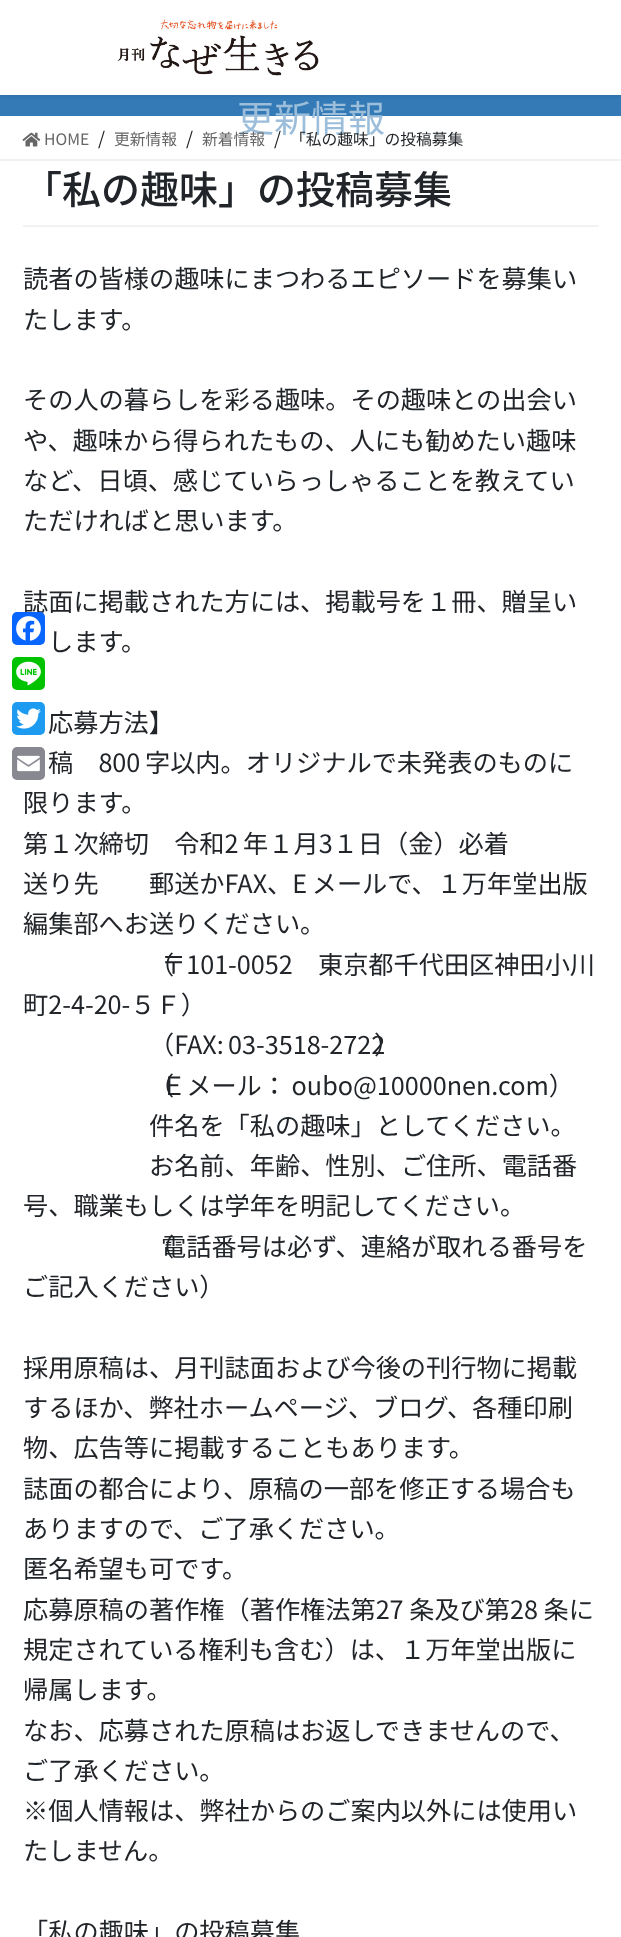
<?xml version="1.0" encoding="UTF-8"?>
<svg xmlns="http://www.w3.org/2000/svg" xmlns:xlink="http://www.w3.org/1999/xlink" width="621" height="1937">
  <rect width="100%" height="100%" fill="#ffffff" />
  <rect y="95" width="621" height="21" fill="#337ab7" />
  <rect y="2" width="621" height="94" fill="#000000" fill-opacity="0.1" filter="blur(2px)" />
  <rect width="621" height="95" fill="#ffffff" />
  <image x="117" y="19" width="202" height="57" xlink:href="image1.png" />
  <rect y="159" width="621" height="2" fill="#f2f2f2" />
  <image x="22" y="132" width="19" height="15" xlink:href="image2.png" />
  <rect x="23" y="225" width="576" height="2" fill="#f2f2f2" />
  <rect x="12" y="657" width="33" height="33" rx="5" fill="#00c300" />
  <image x="16" y="661" width="25" height="25" xlink:href="image4.png" />
  <rect x="12" y="702" width="33" height="33" rx="5" fill="#1d9bf0" />
  <image x="16" y="708" width="25" height="21" xlink:href="image5.png" />
  <rect x="12" y="747" width="33" height="33" rx="5" fill="#888990" />
  <image x="17" y="755" width="23" height="17" xlink:href="image6.png" />
  <text x="237" y="132" style="font-family: Noto Sans JP; font-size: 37px; fill: #9cbeda">更新情報</text>
  <text x="44" y="145" style="font-family: Noto Sans JP; font-size: 15.75px; fill: #666666">HOME</text>
  <text x="98" y="145" style="font-family: Noto Sans JP; font-size: 18px; fill: #212529">/</text>
  <text x="114" y="145" style="font-family: Noto Sans JP; font-size: 15.75px; fill: #666666">更新情報</text>
  <text x="186" y="145" style="font-family: Noto Sans JP; font-size: 18px; fill: #212529">/</text>
  <text x="202" y="145" style="font-family: Noto Sans JP; font-size: 15.75px; fill: #666666">新着情報</text>
  <text x="274" y="145" style="font-family: Noto Sans JP; font-size: 18px; fill: #212529">/</text>
  <text x="290" y="145" style="font-family: Noto Sans JP; font-size: 15.75px; fill: #212529">「私の趣味」の投稿募集</text>
  <text x="23" y="204" style="font-family: Noto Sans JP; font-size: 39px; font-weight: 500; fill: #212529">「私の趣味」の投稿募集</text>
  <text x="23" y="288" style="font-family: Noto Sans JP; font-size: 25.2px; fill: #212529">読者の皆様の趣味にまつわるエピソードを募集い</text>
  <text x="23" y="329" style="font-family: Noto Sans JP; font-size: 25.2px; fill: #212529">たします。</text>
  <text x="23" y="409" style="font-family: Noto Sans JP; font-size: 25.2px; fill: #212529">その人の暮らしを彩る趣味。その趣味との出会い</text>
  <text x="23" y="450" style="font-family: Noto Sans JP; font-size: 25.2px; fill: #212529">や、趣味から得られたもの、人にも勧めたい趣味</text>
  <text x="23" y="490" style="font-family: Noto Sans JP; font-size: 25.2px; fill: #212529">など、日頃、感じていらっしゃることを教えてい</text>
  <text x="23" y="530" style="font-family: Noto Sans JP; font-size: 25.2px; fill: #212529">ただければと思います。</text>
  <text x="23" y="611" style="font-family: Noto Sans JP; font-size: 25.2px; fill: #212529">誌面に掲載された方には、掲載号を１冊、贈呈い</text>
  <text x="48" y="651" style="font-family: Noto Sans JP; font-size: 25.2px; fill: #212529">します。</text>
  <text x="48" y="732" style="font-family: Noto Sans JP; font-size: 25.2px; fill: #212529">応募方法】</text>
  <text x="48" y="772" word-spacing="-1" style="font-family: Noto Sans JP; font-size: 25.2px; fill: #212529">稿　800 字以内。オリジナルで未発表のものに</text>
  <text x="23" y="812" style="font-family: Noto Sans JP; font-size: 25.2px; fill: #212529">限ります。</text>
  <text x="23" y="853" word-spacing="-1" style="font-family: Noto Sans JP; font-size: 25.2px; fill: #212529">第１次締切　令和2 年１月3１日（金）必着</text>
  <text x="23" y="893" word-spacing="-1" style="font-family: Noto Sans JP; font-size: 25.2px; fill: #212529">送り先　　郵送かFAX、E メールで、１万年堂出版</text>
  <text x="23" y="933" style="font-family: Noto Sans JP; font-size: 25.2px; fill: #212529">編集部へお送りください。</text>
  <text x="149" y="974" style="font-family: Noto Sans JP; font-size: 25.2px; fill: #212529">（</text>
  <text x="161" y="974" style="font-family: Noto Sans JP; font-size: 25.2px; fill: #212529">〒101-0052　東京都千代田区神田小川</text>
  <text x="23" y="1014" style="font-family: Noto Sans JP; font-size: 25.2px; fill: #212529">町2-4-20-５Ｆ）</text>
  <text x="149" y="1054" style="font-family: Noto Sans JP; font-size: 25.2px; fill: #212529">（FAX:</text>
  <text x="228" y="1054" style="font-family: Noto Sans JP; font-size: 25.2px; fill: #212529">03-3518-2722</text>
  <text x="374" y="1054" style="font-family: Noto Sans JP; font-size: 25.2px; fill: #212529">）</text>
  <text x="149" y="1095" word-spacing="-1" style="font-family: Noto Sans JP; font-size: 25.2px; fill: #212529">（</text>
  <text x="161" y="1095" word-spacing="-1" style="font-family: Noto Sans JP; font-size: 25.2px; fill: #212529">Ｅメール： oubo@10000nen.com）</text>
  <text x="149" y="1135" style="font-family: Noto Sans JP; font-size: 25.2px; fill: #212529">件名を「私の趣味」としてください。</text>
  <text x="149" y="1175" style="font-family: Noto Sans JP; font-size: 25.2px; fill: #212529">お名前、年齢、性別、ご住所、電話番</text>
  <text x="23" y="1215" style="font-family: Noto Sans JP; font-size: 25.2px; fill: #212529">号、職業もしくは学年を明記してください。</text>
  <text x="149" y="1256" style="font-family: Noto Sans JP; font-size: 25.2px; fill: #212529">（</text>
  <text x="161" y="1256" style="font-family: Noto Sans JP; font-size: 25.2px; fill: #212529">電話番号は必ず、連絡が取れる番号を</text>
  <text x="23" y="1296" style="font-family: Noto Sans JP; font-size: 25.2px; fill: #212529">ご記入ください）</text>
  <text x="23" y="1377" style="font-family: Noto Sans JP; font-size: 25.2px; fill: #212529">採用原稿は、月刊誌面および今後の刊行物に掲載</text>
  <text x="23" y="1417" style="font-family: Noto Sans JP; font-size: 25.2px; fill: #212529">するほか、弊社ホームページ、ブログ、各種印刷</text>
  <text x="23" y="1457" style="font-family: Noto Sans JP; font-size: 25.2px; fill: #212529">物、広告等に掲載することもあります。</text>
  <text x="23" y="1498" style="font-family: Noto Sans JP; font-size: 25.2px; fill: #212529">誌面の都合により、原稿の一部を修正する場合も</text>
  <text x="23" y="1538" style="font-family: Noto Sans JP; font-size: 25.2px; fill: #212529">ありますので、ご了承ください。</text>
  <text x="23" y="1578" style="font-family: Noto Sans JP; font-size: 25.2px; fill: #212529">匿名希望も可です。</text>
  <text x="23" y="1619" style="font-family: Noto Sans JP; font-size: 25.2px; fill: #212529">応募原稿の著作権（著作権法第27 条及び第28 条に</text>
  <text x="23" y="1659" style="font-family: Noto Sans JP; font-size: 25.2px; fill: #212529">規定されている権利も含む）は、１万年堂出版に</text>
  <text x="23" y="1699" style="font-family: Noto Sans JP; font-size: 25.2px; fill: #212529">帰属します。</text>
  <text x="23" y="1740" style="font-family: Noto Sans JP; font-size: 25.2px; fill: #212529">なお、応募された原稿はお返しできませんので、</text>
  <text x="23" y="1780" style="font-family: Noto Sans JP; font-size: 25.2px; fill: #212529">ご了承ください。</text>
  <text x="23" y="1820" style="font-family: Noto Sans JP; font-size: 25.2px; fill: #212529">※個人情報は、弊社からのご案内以外には使用い</text>
  <text x="23" y="1860" style="font-family: Noto Sans JP; font-size: 25.2px; fill: #212529">たしません。</text>
  <text x="23" y="1941" style="font-family: Noto Sans JP; font-size: 25.2px; fill: #212529">「私の趣味」の投稿募集</text>
  <rect x="12" y="612" width="33" height="33" rx="5" fill="#0866ff" />
  <image x="16" y="616" width="25" height="25" xlink:href="image3.png" />
</svg>
